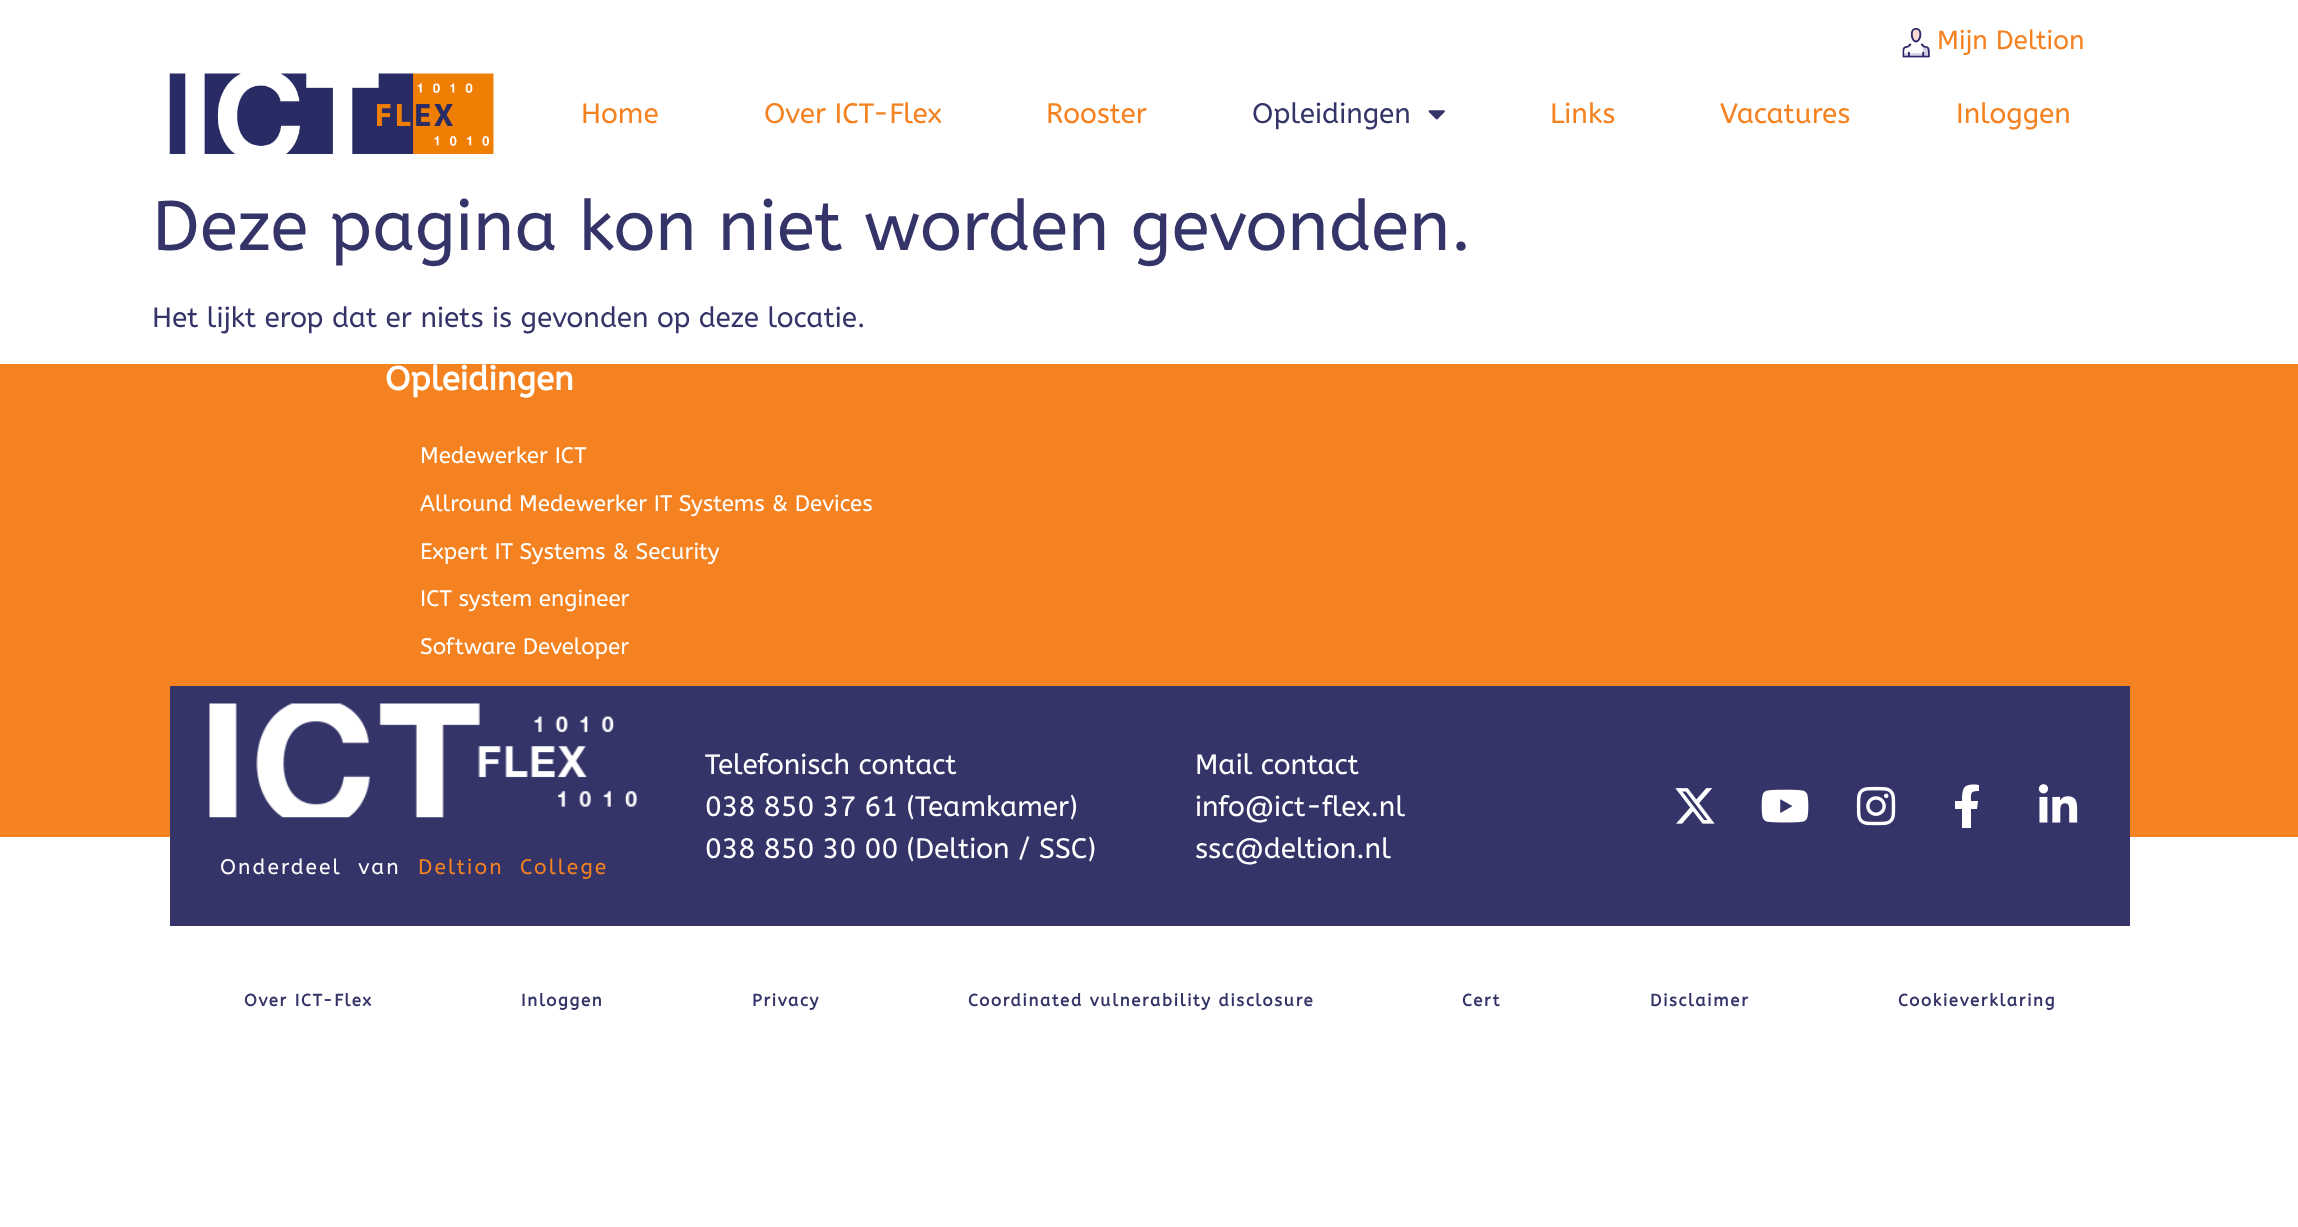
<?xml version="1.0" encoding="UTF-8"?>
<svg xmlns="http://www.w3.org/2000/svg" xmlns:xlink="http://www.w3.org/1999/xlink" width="2298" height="1227">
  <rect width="100%" height="100%" fill="#ffffff" />
  <image x="1902" y="28" width="28" height="30" xlink:href="image1.png" />
  <image x="169" y="73" width="325" height="81" xlink:href="image2.png" />
  <image x="1428" y="110" width="17" height="10" xlink:href="image3.png" />
  <rect y="364" width="2298" height="473" fill="#f58220" />
  <rect x="170" y="686" width="1960" height="240" fill="#343469" />
  <image x="1675" y="788" width="40" height="36" xlink:href="image4.png" />
  <image x="1761" y="789" width="48" height="34" xlink:href="image5.png" />
  <image x="1856" y="786" width="40" height="40" xlink:href="image6.png" />
  <path d="M 1977 809 h -6 v 19 h -9 v -19 h -7 v -8 h 7 c 0 -14 2 -18 17 -16 v 6 c -9 0 -8 2 -8 10 h 7 z" fill="#ffffff" />
  <image x="2038" y="784" width="40" height="39" xlink:href="image7.png" />
  <image x="209" y="703" width="429" height="115" xlink:href="image8.png" />
  <text x="1937" y="49" style="font-family: ABeeZee; font-size: 26.25px; fill: #f58220">Mijn Deltion</text>
  <text x="581" y="123" style="font-family: ABeeZee; font-size: 28px; fill: #f58220">Home</text>
  <text x="764" y="123" style="font-family: ABeeZee; font-size: 28px; fill: #f58220">Over ICT-Flex</text>
  <text x="1046" y="123" style="font-family: ABeeZee; font-size: 28px; fill: #f58220">Rooster</text>
  <text x="1252" y="123" style="font-family: ABeeZee; font-size: 28px; fill: #343469">Opleidingen</text>
  <text x="1550" y="123" style="font-family: ABeeZee; font-size: 28px; fill: #f58220">Links</text>
  <text x="1720" y="123" style="font-family: ABeeZee; font-size: 28px; fill: #f58220">Vacatures</text>
  <text x="1956" y="123" style="font-family: ABeeZee; font-size: 28px; fill: #f58220">Inloggen</text>
  <text x="152" y="250" style="font-family: ABeeZee; font-size: 70px; fill: #343469">Deze pagina kon niet worden gevonden.</text>
  <text x="152" y="327" style="font-family: ABeeZee; font-size: 28px; fill: #343469">Het lijkt erop dat er niets is gevonden op deze locatie.</text>
  <text x="385" y="390" style="font-family: ABeeZee; font-size: 33.25px; font-weight: bold; fill: #ffffff">Opleidingen</text>
  <text x="420" y="463" style="font-family: ABeeZee; font-size: 22.4px; fill: #ffffff">Medewerker ICT</text>
  <text x="420" y="511" style="font-family: ABeeZee; font-size: 22.4px; fill: #ffffff">Allround Medewerker IT Systems &amp; Devices</text>
  <text x="420" y="559" style="font-family: ABeeZee; font-size: 22.4px; fill: #ffffff">Expert IT Systems &amp; Security</text>
  <text x="420" y="606" style="font-family: ABeeZee; font-size: 22.4px; fill: #ffffff">ICT system engineer</text>
  <text x="420" y="654" style="font-family: ABeeZee; font-size: 22.4px; fill: #ffffff">Software Developer</text>
  <text x="705" y="774" style="font-family: ABeeZee; font-size: 28px; fill: #ffffff">Telefonisch contact</text>
  <text x="705" y="816" style="font-family: ABeeZee; font-size: 28px; fill: #ffffff">038 850 37 61 (Teamkamer)</text>
  <text x="705" y="858" style="font-family: ABeeZee; font-size: 28px; fill: #ffffff">038 850 30 00 (Deltion / SSC)</text>
  <text x="1195" y="774" style="font-family: ABeeZee; font-size: 28px; fill: #ffffff">Mail contact</text>
  <text x="1195" y="816" style="font-family: ABeeZee; font-size: 28px; fill: #ffffff">info@ict-flex.nl</text>
  <text x="1195" y="858" style="font-family: ABeeZee; font-size: 28px; fill: #ffffff">ssc@deltion.nl</text>
  <text x="220" y="874" word-spacing="8" style="font-family: ABeeZee; font-size: 21px; letter-spacing: 2.1px; fill: #ffffff">Onderdeel van</text>
  <text x="418" y="874" word-spacing="8" style="font-family: ABeeZee; font-size: 21px; letter-spacing: 2.1px; fill: #f58220">Deltion College</text>
  <text x="244" y="1006" style="font-family: ABeeZee; font-size: 16.8px; font-weight: bold; letter-spacing: 1.7px; fill: #343469">Over ICT-Flex</text>
  <text x="521" y="1006" style="font-family: ABeeZee; font-size: 16.8px; font-weight: bold; letter-spacing: 1.7px; fill: #343469">Inloggen</text>
  <text x="752" y="1006" style="font-family: ABeeZee; font-size: 16.8px; font-weight: bold; letter-spacing: 1.7px; fill: #343469">Privacy</text>
  <text x="968" y="1006" style="font-family: ABeeZee; font-size: 16.8px; font-weight: bold; letter-spacing: 1.7px; fill: #343469">Coordinated vulnerability disclosure</text>
  <text x="1462" y="1006" style="font-family: ABeeZee; font-size: 16.8px; font-weight: bold; letter-spacing: 1.7px; fill: #343469">Cert</text>
  <text x="1650" y="1006" style="font-family: ABeeZee; font-size: 16.8px; font-weight: bold; letter-spacing: 1.7px; fill: #343469">Disclaimer</text>
  <text x="1898" y="1006" style="font-family: ABeeZee; font-size: 16.8px; font-weight: bold; letter-spacing: 1.7px; fill: #343469">Cookieverklaring</text>
</svg>
